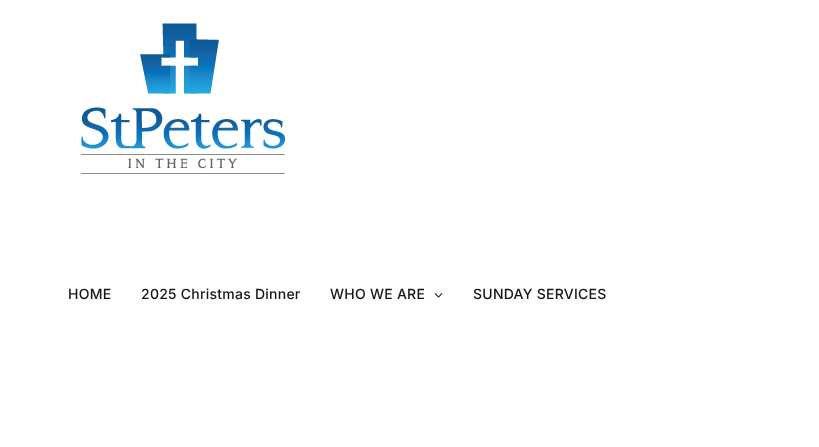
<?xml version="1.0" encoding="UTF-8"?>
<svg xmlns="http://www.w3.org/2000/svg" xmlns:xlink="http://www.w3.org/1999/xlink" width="819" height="447">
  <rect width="100%" height="100%" fill="#ffffff" />
  <image x="81" y="23" width="204" height="151" xlink:href="image1.png" />
  <image x="434" y="293" width="9" height="5" xlink:href="image2.png" />
  <text x="68" y="299" style="font-family: Inter; font-size: 14px; font-weight: 500; letter-spacing: 0.25px; fill: #141617">HOME</text>
  <text x="141" y="299" style="font-family: Inter; font-size: 14px; font-weight: 500; letter-spacing: 0.25px; fill: #141617">2025 Christmas Dinner</text>
  <text x="330" y="299" style="font-family: Inter; font-size: 14px; font-weight: 500; letter-spacing: 0.25px; fill: #141617">WHO WE ARE</text>
  <text x="473" y="299" style="font-family: Inter; font-size: 14px; font-weight: 500; letter-spacing: 0.25px; fill: #141617">SUNDAY SERVICES</text>
</svg>
